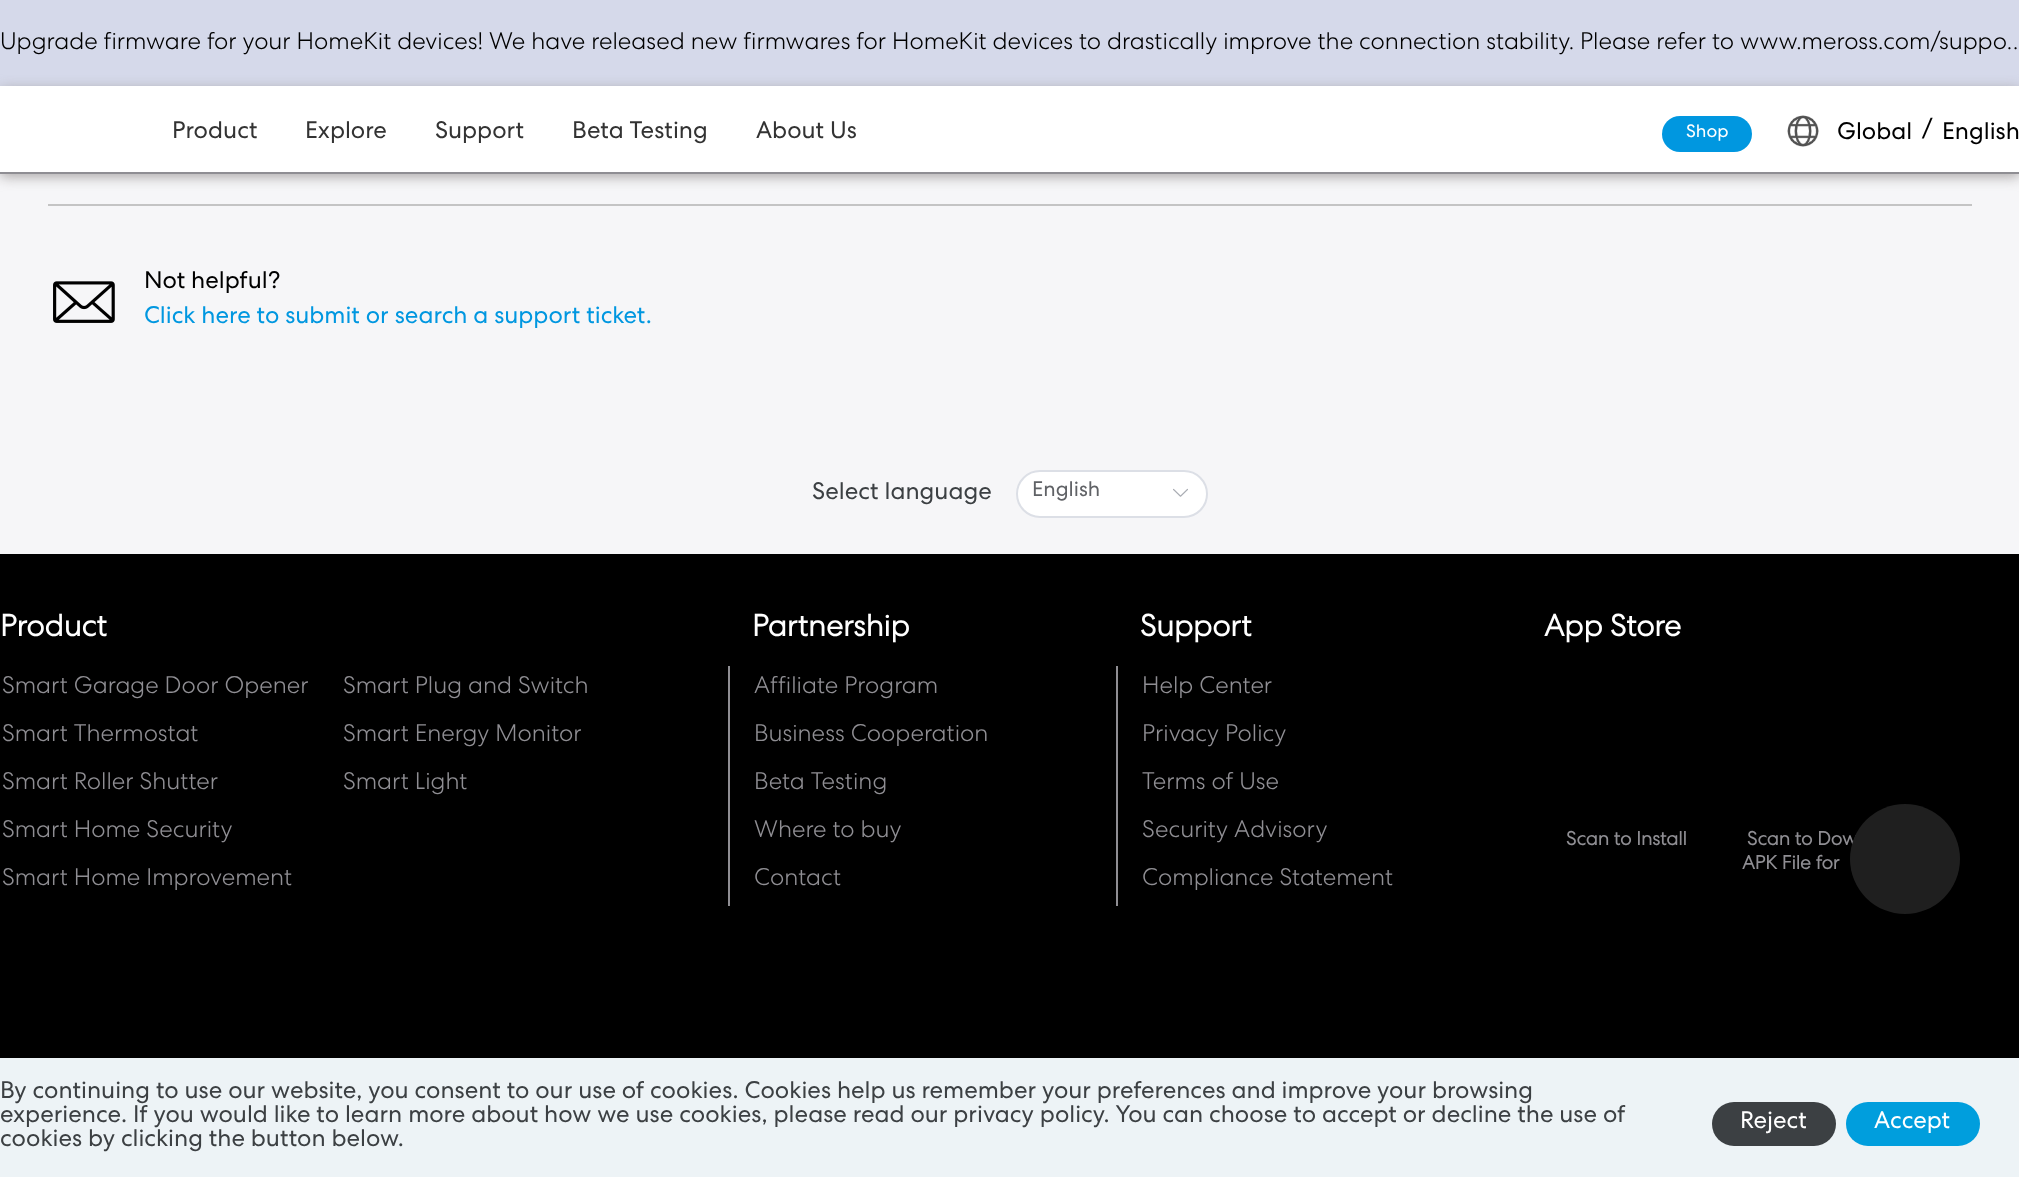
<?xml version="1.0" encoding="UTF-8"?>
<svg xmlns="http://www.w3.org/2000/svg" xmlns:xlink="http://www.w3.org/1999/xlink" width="2019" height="1177">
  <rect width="100%" height="100%" fill="#f6f6f8" />
  <rect width="2019" height="86" fill="#d5d9ea" />
  <rect y="90" width="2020" height="86" fill="#a29e9e" filter="blur(7px)" />
  <rect y="86" width="2019" height="86" fill="#ffffff" />
  <rect y="172" width="2019" height="2" fill="#8f8e93" />
  <rect x="1662" y="116" width="90" height="36" rx="18" fill="#0097e0" />
  <image x="1787" y="115" width="32" height="32" xlink:href="image1.png" />
  <rect x="48" y="204" width="1924" height="2" fill="#c4c4c4" />
  <image x="53" y="281" width="62" height="42" xlink:href="image2.png" />
  <rect x="1017" y="471" width="190" height="46" rx="23" fill="#ffffff" stroke="#dcdfe6" stroke-width="2" />
  <image x="1173" y="488" width="15" height="9" xlink:href="image3.png" />
  <rect y="554" width="2019" height="504" fill="#000000" />
  <rect x="728" y="666" width="2" height="240" fill="#8f8e93" />
  <rect x="1116" y="666" width="2" height="240" fill="#8f8e93" />
  <rect y="1058" width="2019" height="119" fill="#edf3f6" />
  <rect x="1712" y="1102" width="124" height="44" rx="22" fill="#3c4043" />
  <rect x="1846" y="1102" width="134" height="44" rx="22" fill="#009edd" />
  <text x="0" y="49" style="font-family: 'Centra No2'; font-size: 24px; font-weight: 300; fill: #000000">Upgrade firmware for your HomeKit devices! We have released new firmwares for HomeKit devices to drastically improve the connection stability. Please refer to www.meross.com/suppo…</text>
  <text x="172" y="138" style="font-family: 'Centra No2'; font-size: 24px; fill: #333333">Product</text>
  <text x="305" y="138" style="font-family: 'Centra No2'; font-size: 24px; fill: #333333">Explore</text>
  <text x="435" y="138" style="font-family: 'Centra No2'; font-size: 24px; fill: #333333">Support</text>
  <text x="572" y="138" style="font-family: 'Centra No2'; font-size: 24px; fill: #333333">Beta Testing</text>
  <text x="756" y="138" style="font-family: 'Centra No2'; font-size: 24px; fill: #333333">About Us</text>
  <text x="1686" y="137" style="font-family: 'Centra No2'; font-size: 18px; fill: #ffffff">Shop</text>
  <text x="1837" y="139" style="font-family: 'Centra No2'; font-size: 24px; fill: #000000">Global</text>
  <text x="1922" y="136" style="font-family: 'Centra No2'; font-size: 24px; fill: #000000">/</text>
  <text x="1942" y="139" style="font-family: 'Centra No2'; font-size: 24px; fill: #000000">English</text>
  <text x="144" y="288" style="font-family: 'Centra No2'; font-size: 24px; fill: #000000">Not helpful?</text>
  <text x="144" y="323" style="font-family: 'Centra No2'; font-size: 24px; fill: #0097e0">Click here to submit or search a support ticket.</text>
  <text x="812" y="499" style="font-family: 'Centra No2'; font-size: 24px; fill: #3c4043">Select language</text>
  <text x="1032" y="496" style="font-family: 'Centra No2'; font-size: 21px; fill: #606266">English</text>
  <text x="0" y="636" style="font-family: 'Centra No2'; font-size: 30.5px; font-weight: bold; fill: #ffffff">Product</text>
  <text x="2" y="693" style="font-family: 'Centra No2'; font-size: 24px; font-weight: 300; fill: #8f8e93">Smart Garage Door Opener</text>
  <text x="343" y="693" style="font-family: 'Centra No2'; font-size: 24px; font-weight: 300; fill: #8f8e93">Smart Plug and Switch</text>
  <text x="2" y="741" style="font-family: 'Centra No2'; font-size: 24px; font-weight: 300; fill: #8f8e93">Smart Thermostat</text>
  <text x="343" y="741" style="font-family: 'Centra No2'; font-size: 24px; font-weight: 300; fill: #8f8e93">Smart Energy Monitor</text>
  <text x="2" y="789" style="font-family: 'Centra No2'; font-size: 24px; font-weight: 300; fill: #8f8e93">Smart Roller Shutter</text>
  <text x="343" y="789" style="font-family: 'Centra No2'; font-size: 24px; font-weight: 300; fill: #8f8e93">Smart Light</text>
  <text x="2" y="837" style="font-family: 'Centra No2'; font-size: 24px; font-weight: 300; fill: #8f8e93">Smart Home Security</text>
  <text x="2" y="885" style="font-family: 'Centra No2'; font-size: 24px; font-weight: 300; fill: #8f8e93">Smart Home Improvement</text>
  <text x="752" y="636" style="font-family: 'Centra No2'; font-size: 30.5px; font-weight: bold; fill: #ffffff">Partnership</text>
  <text x="754" y="693" style="font-family: 'Centra No2'; font-size: 24px; font-weight: 300; fill: #8f8e93">Affiliate Program</text>
  <text x="754" y="741" style="font-family: 'Centra No2'; font-size: 24px; font-weight: 300; fill: #8f8e93">Business Cooperation</text>
  <text x="754" y="789" style="font-family: 'Centra No2'; font-size: 24px; font-weight: 300; fill: #8f8e93">Beta Testing</text>
  <text x="754" y="837" style="font-family: 'Centra No2'; font-size: 24px; font-weight: 300; fill: #8f8e93">Where to buy</text>
  <text x="754" y="885" style="font-family: 'Centra No2'; font-size: 24px; font-weight: 300; fill: #8f8e93">Contact</text>
  <text x="1140" y="636" style="font-family: 'Centra No2'; font-size: 30.5px; font-weight: bold; fill: #ffffff">Support</text>
  <text x="1142" y="693" style="font-family: 'Centra No2'; font-size: 24px; font-weight: 300; fill: #8f8e93">Help Center</text>
  <text x="1142" y="741" style="font-family: 'Centra No2'; font-size: 24px; font-weight: 300; fill: #8f8e93">Privacy Policy</text>
  <text x="1142" y="789" style="font-family: 'Centra No2'; font-size: 24px; font-weight: 300; fill: #8f8e93">Terms of Use</text>
  <text x="1142" y="837" style="font-family: 'Centra No2'; font-size: 24px; font-weight: 300; fill: #8f8e93">Security Advisory</text>
  <text x="1142" y="885" style="font-family: 'Centra No2'; font-size: 24px; font-weight: 300; fill: #8f8e93">Compliance Statement</text>
  <text x="1544" y="636" style="font-family: 'Centra No2'; font-size: 30.5px; font-weight: bold; fill: #ffffff">App Store</text>
  <text x="1566" y="845" style="font-family: 'Centra No2'; font-size: 19.25px; font-weight: bold; fill: #8f8e93">Scan to Install</text>
  <text x="1747" y="845" style="font-family: 'Centra No2'; font-size: 19.25px; font-weight: bold; fill: #8f8e93">Scan to Dow</text>
  <text x="1742" y="869" style="font-family: 'Centra No2'; font-size: 19.25px; font-weight: bold; fill: #8f8e93">APK File for</text>
  <circle cx="1905" cy="859" r="55" fill="#1f1f1f" />
  <text x="0" y="1098" style="font-family: 'Centra No2'; font-size: 24px; fill: #3c4043">By continuing to use our website, you consent to our use of cookies. Cookies help us remember your preferences and improve your browsing</text>
  <text x="0" y="1122" style="font-family: 'Centra No2'; font-size: 24px; fill: #3c4043">experience. If you would like to learn more about how we use cookies, please read our privacy policy. You can choose to accept or decline the use of</text>
  <text x="0" y="1146" style="font-family: 'Centra No2'; font-size: 24px; fill: #3c4043">cookies by clicking the button below.</text>
  <text x="1740" y="1128" style="font-family: 'Centra No2'; font-size: 24px; fill: #ffffff">Reject</text>
  <text x="1874" y="1128" style="font-family: 'Centra No2'; font-size: 24px; fill: #ffffff">Accept</text>
</svg>
